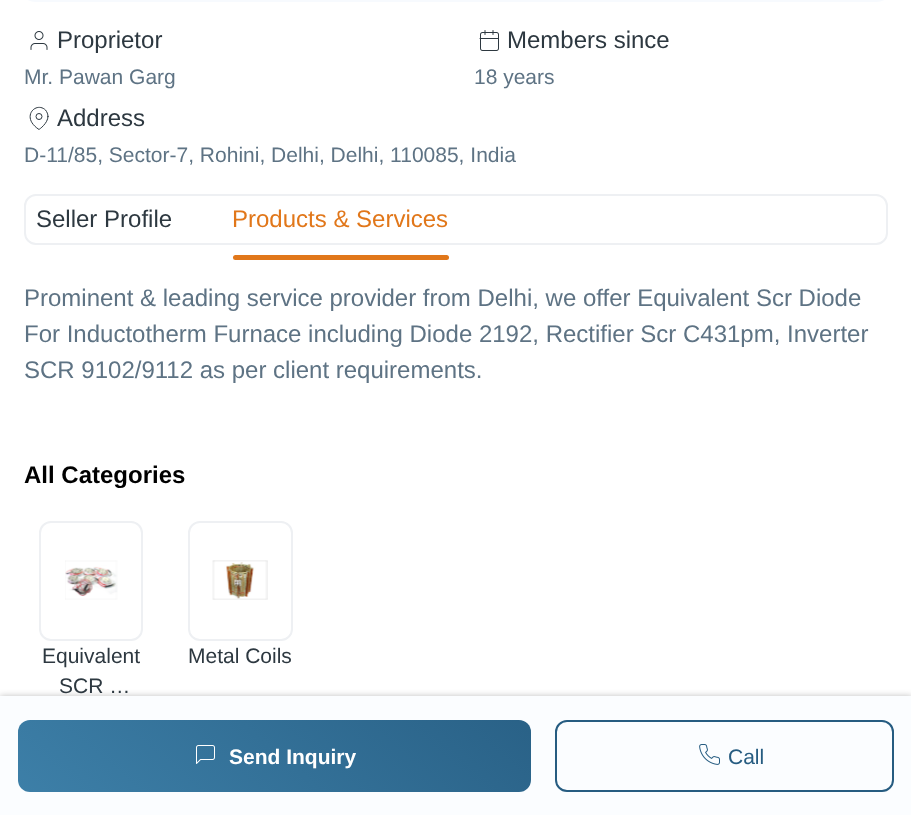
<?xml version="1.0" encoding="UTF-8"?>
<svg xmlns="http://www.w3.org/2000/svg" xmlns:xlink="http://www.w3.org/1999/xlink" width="911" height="815">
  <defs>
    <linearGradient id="g1" gradientUnits="userSpaceOnUse" x1="456" y1="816" x2="456" y2="692"><stop offset="0.97" stop-color="#fbfdff" /><stop offset="1" stop-color="#fbfdff" stop-opacity="0" /></linearGradient>
    <linearGradient id="g2" gradientUnits="userSpaceOnUse" x1="109" y1="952" x2="445" y2="555"><stop offset="0" stop-color="#4084ad" /><stop offset="1" stop-color="#265c81" /></linearGradient>
  </defs>
  <rect width="100%" height="100%" fill="#ffffff" />
  <rect x="24" y="-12" width="864" height="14" rx="12" fill="#f7fafe" />
  <image x="30" y="31" width="18" height="19" xlink:href="image1.png" />
  <image x="479" y="30" width="20" height="21" xlink:href="image2.png" />
  <path d="M 48 116.5 c 0 7 -9 13 -9 13 c -19 -12.5 -3 -28.5 6.5 -19.5 c 1.5 2 2.5 4 2.5 6.5 z" fill="none" stroke="#2d3840" stroke-linecap="round" stroke-linejoin="round" />
  <circle cx="39" cy="116.5" r="3" fill="none" stroke="#2d3840" />
  <rect y="696" width="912" height="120" fill="#000000" fill-opacity="0.25" filter="blur(3px)" />
  <rect y="696" width="911" height="119" fill="url(#g1)" />
  <rect x="18" y="720" width="513" height="72" rx="12" fill="url(#g2)" />
  <image x="196" y="745" width="19" height="19" xlink:href="image3.png" />
  <rect x="556" y="721" width="337" height="70" rx="11" fill="none" stroke="#265c81" stroke-width="2" />
  <image x="699" y="744" width="21" height="21" xlink:href="image4.png" />
  <rect x="25" y="195" width="862" height="49" rx="11" fill="none" stroke="#eef0f3" stroke-width="2" />
  <rect x="233" y="255" width="216" height="5" rx="2.5" fill="#e1771a" />
  <rect x="40" y="522" width="102" height="118" rx="11" fill="none" stroke="#eef0f3" stroke-width="2" />
  <image x="65" y="560" width="53" height="40" xlink:href="image5.png" />
  <rect x="189" y="522" width="103" height="118" rx="11" fill="none" stroke="#eef0f3" stroke-width="2" />
  <image x="212" y="560" width="56" height="40" xlink:href="image6.png" />
  <text x="57" y="48" style="font-family: Liberation Sans; font-size: 24px; fill: #2d3840">Proprietor</text>
  <text x="24" y="84" style="font-family: Liberation Sans; font-size: 21px; fill: #5e7384">Mr. Pawan Garg</text>
  <text x="507" y="48" style="font-family: Liberation Sans; font-size: 24px; fill: #2d3840">Members since</text>
  <text x="474" y="84" style="font-family: Liberation Sans; font-size: 21px; fill: #5e7384">18 years</text>
  <text x="57" y="126" style="font-family: Liberation Sans; font-size: 24px; fill: #2d3840">Address</text>
  <text x="24" y="162" style="font-family: Liberation Sans; font-size: 21px; fill: #5e7384">D-11/85, Sector-7, Rohini, Delhi, Delhi, 110085, India</text>
  <text x="229" y="764" style="font-family: Liberation Sans; font-size: 21px; font-weight: bold; fill: #ffffff">Send Inquiry</text>
  <text x="728" y="764" style="font-family: Liberation Sans; font-size: 21px; fill: #265c81">Call</text>
  <text x="36" y="227" style="font-family: Liberation Sans; font-size: 24px; fill: #2d3840">Seller Profile</text>
  <text x="232" y="227" style="font-family: Liberation Sans; font-size: 24px; fill: #e1771a">Products &amp; Services</text>
  <text x="24" y="306" style="font-family: Liberation Sans; font-size: 24px; fill: #5e7384">Prominent &amp; leading service provider from Delhi, we offer Equivalent Scr Diode</text>
  <text x="24" y="342" style="font-family: Liberation Sans; font-size: 24px; fill: #5e7384">For Inductotherm Furnace including Diode 2192, Rectifier Scr C431pm, Inverter</text>
  <text x="24" y="378" style="font-family: Liberation Sans; font-size: 24px; fill: #5e7384">SCR 9102/9112 as per client requirements.</text>
  <text x="24" y="483" style="font-family: Liberation Sans; font-size: 24px; font-weight: bold; fill: #000000">All Categories</text>
  <text x="42" y="663" style="font-family: Liberation Sans; font-size: 21px; fill: #2d3840">Equivalent</text>
  <text x="59" y="693" style="font-family: Liberation Sans; font-size: 21px; fill: #2d3840">SCR …</text>
  <text x="188" y="663" style="font-family: Liberation Sans; font-size: 21px; fill: #2d3840">Metal Coils</text>
</svg>
